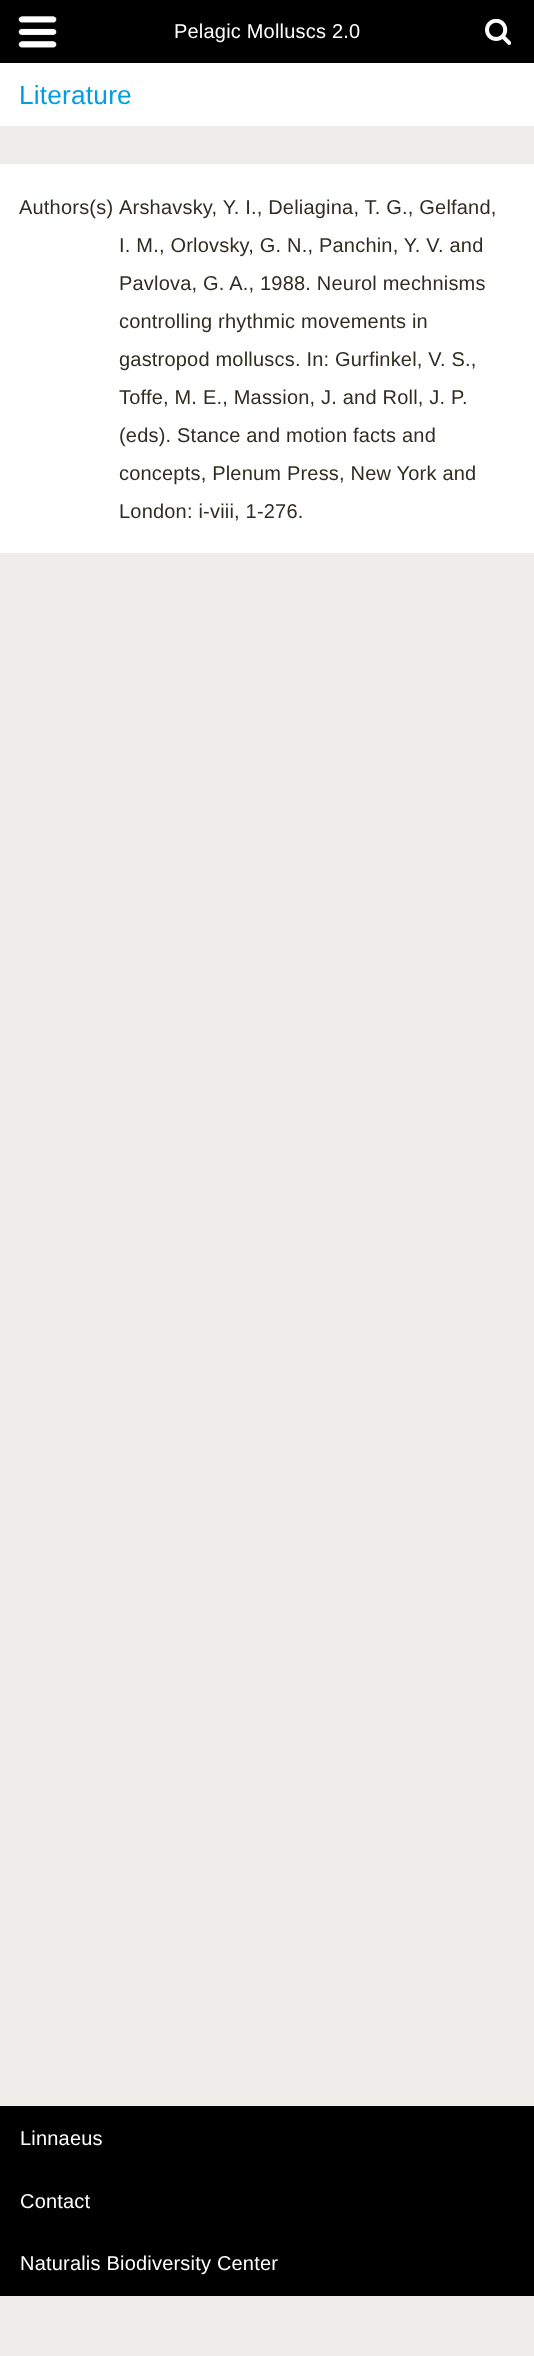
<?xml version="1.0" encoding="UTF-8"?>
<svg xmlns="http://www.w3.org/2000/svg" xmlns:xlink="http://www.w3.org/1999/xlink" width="534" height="2356">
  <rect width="100%" height="100%" fill="#eeede9" />
  <rect width="534" height="63" fill="#000000" />
  <image x="18" y="16" width="39" height="32" xlink:href="image1.png" />
  <image x="485" y="19" width="26" height="26" xlink:href="image2.png" />
  <rect y="63" width="534" height="63" fill="#ffffff" />
  <rect y="164" width="534" height="389" fill="#ffffff" />
  <rect y="2106" width="534" height="190" fill="#000000" />
  <text x="174" y="38" style="font-family: Liberation Sans; font-size: 20px; letter-spacing: 0.2px; fill: #ffffff">Pelagic Molluscs 2.0</text>
  <text x="19" y="104" style="font-family: Liberation Sans; font-size: 26.25px; letter-spacing: 0.2px; fill: #009ee0">Literature</text>
  <text x="19" y="214" style="font-family: Liberation Sans; font-size: 20px; letter-spacing: 0.2px; fill: #302c22">Authors(s)</text>
  <text x="119" y="214" style="font-family: Liberation Sans; font-size: 20px; letter-spacing: 0.2px; fill: #302c22">Arshavsky, Y. I., Deliagina, T. G., Gelfand,</text>
  <text x="119" y="252" style="font-family: Liberation Sans; font-size: 20px; letter-spacing: 0.2px; fill: #302c22">I. M., Orlovsky, G. N., Panchin, Y. V. and</text>
  <text x="119" y="290" style="font-family: Liberation Sans; font-size: 20px; letter-spacing: 0.2px; fill: #302c22">Pavlova, G. A., 1988. Neurol mechnisms</text>
  <text x="119" y="328" style="font-family: Liberation Sans; font-size: 20px; letter-spacing: 0.2px; fill: #302c22">controlling rhythmic movements in</text>
  <text x="119" y="366" style="font-family: Liberation Sans; font-size: 20px; letter-spacing: 0.2px; fill: #302c22">gastropod molluscs. In: Gurfinkel, V. S.,</text>
  <text x="119" y="404" style="font-family: Liberation Sans; font-size: 20px; letter-spacing: 0.2px; fill: #302c22">Toffe, M. E., Massion, J. and Roll, J. P.</text>
  <text x="119" y="442" style="font-family: Liberation Sans; font-size: 20px; letter-spacing: 0.2px; fill: #302c22">(eds). Stance and motion facts and</text>
  <text x="119" y="480" style="font-family: Liberation Sans; font-size: 20px; letter-spacing: 0.2px; fill: #302c22">concepts, Plenum Press, New York and</text>
  <text x="119" y="518" style="font-family: Liberation Sans; font-size: 20px; letter-spacing: 0.2px; fill: #302c22">London: i-viii, 1-276.</text>
  <text x="20" y="2145" style="font-family: Liberation Sans; font-size: 20px; letter-spacing: 0.2px; fill: #ffffff">Linnaeus</text>
  <text x="20" y="2208" style="font-family: Liberation Sans; font-size: 20px; letter-spacing: 0.2px; fill: #ffffff">Contact</text>
  <text x="20" y="2270" style="font-family: Liberation Sans; font-size: 20px; letter-spacing: 0.2px; fill: #ffffff">Naturalis Biodiversity Center</text>
</svg>
